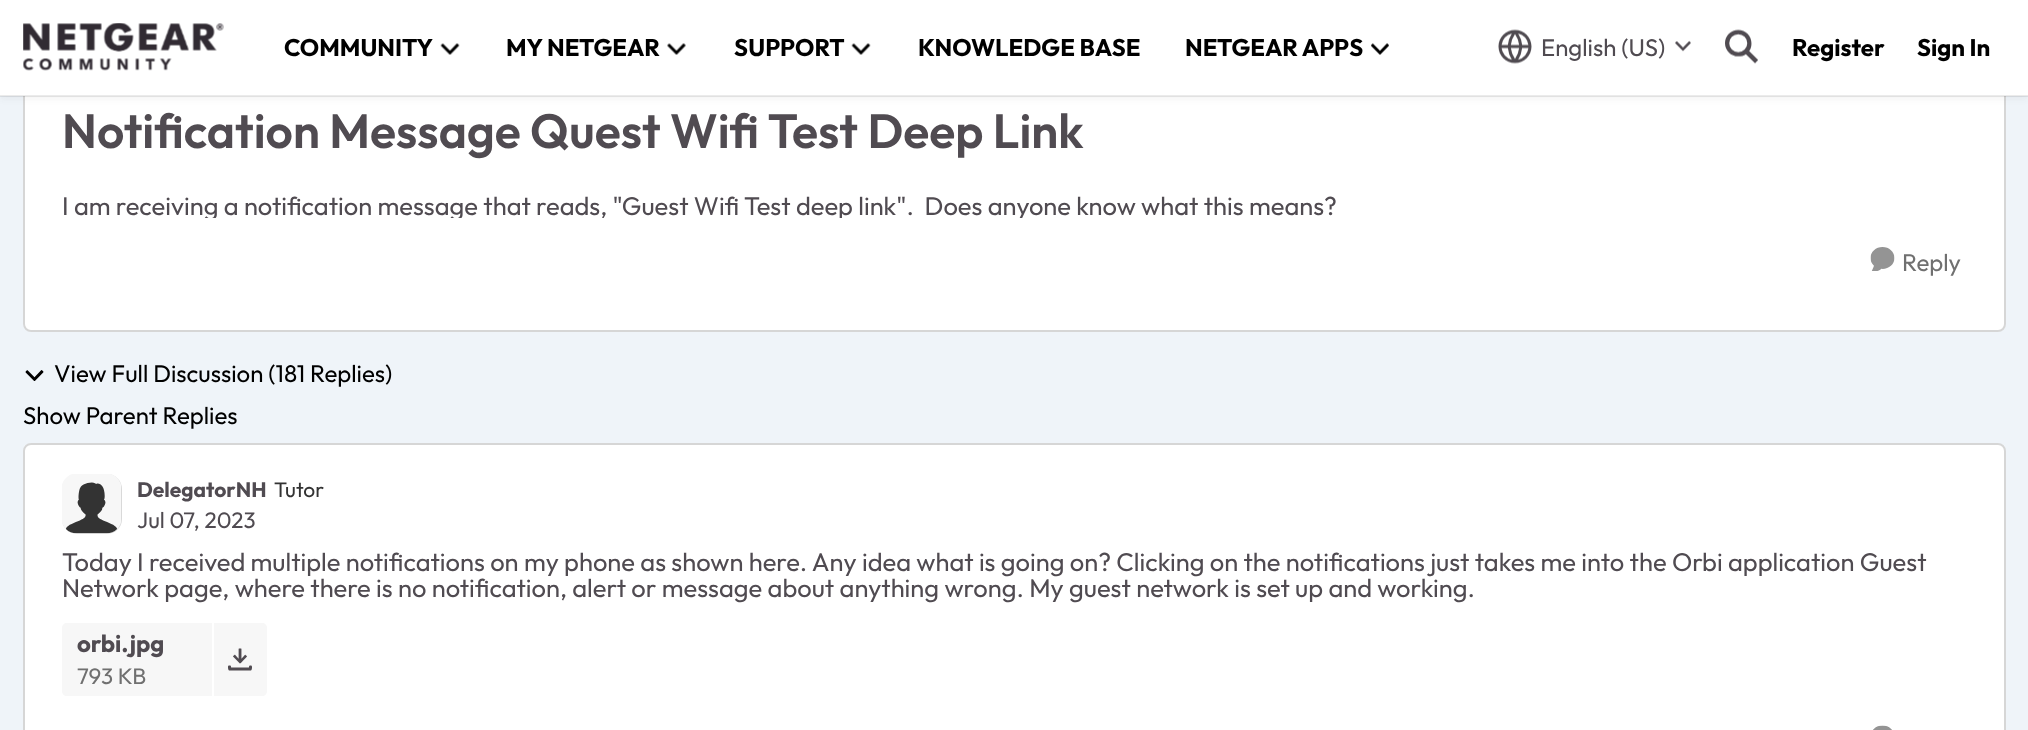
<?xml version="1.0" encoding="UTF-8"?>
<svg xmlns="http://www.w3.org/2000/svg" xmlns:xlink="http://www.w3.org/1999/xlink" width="2028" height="730">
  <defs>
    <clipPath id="clip1"><rect x="62" y="192" width="1905" height="26" /></clipPath>
  </defs>
  <rect width="100%" height="100%" fill="#eff4f9" />
  <rect x="23" y="-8" width="1983" height="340" rx="8" fill="#ffffff" />
  <rect x="24" y="-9" width="1981" height="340" rx="7" fill="none" stroke="#000000" stroke-opacity="0.16" stroke-width="2" />
  <rect y="3" width="2028" height="96" fill="#333333" fill-opacity="0.06" filter="blur(3px)" />
  <rect width="2028" height="96" fill="#ffffff" />
  <rect y="95" width="2028" height="2" fill="#000000" fill-opacity="0.08" />
  <image x="23" y="23" width="201" height="48" xlink:href="image1.png" />
  <image x="440" y="43" width="20" height="12" xlink:href="image2.png" />
  <image x="667" y="43" width="19" height="12" xlink:href="image3.png" />
  <image x="851" y="43" width="20" height="12" xlink:href="image2.png" />
  <image x="1371" y="43" width="18" height="12" xlink:href="image4.png" />
  <image x="1498" y="29" width="34" height="35" xlink:href="image5.png" />
  <image x="1675" y="40" width="16" height="12" xlink:href="image6.png" />
  <image x="1725" y="29" width="33" height="35" xlink:href="image7.png" />
  <image x="1870" y="247" width="25" height="24" xlink:href="image8.png" />
  <image x="25" y="370" width="19" height="11" xlink:href="image9.png" />
  <rect x="23" y="443" width="1983" height="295" rx="8" fill="#ffffff" />
  <rect x="24" y="444" width="1981" height="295" rx="7" fill="none" stroke="#000000" stroke-opacity="0.16" stroke-width="2" />
  <rect x="62" y="474" width="60" height="60" rx="15" fill="#d9d9d9" />
  <image x="62" y="474" width="59" height="60" xlink:href="image10.png" />
  <path d="M 67 623 h 145 v 73 h -145 c -3 0 -5 -2 -5 -5 v -63 c 0 -3 2 -5 5 -5 z" fill="#f7f7f7" />
  <path d="M 212 623 h 50 c 3 0 5 2 5 5 v 63 c 0 3 -2 5 -5 5 h -50 z" fill="#f7f7f7" />
  <rect x="212" y="623" width="2" height="73" fill="#ffffff" />
  <image x="228" y="648" width="24" height="23" xlink:href="image11.png" />
  <image x="1873" y="725" width="19" height="5" xlink:href="image12.png" />
  <text x="284" y="56" style="font-family: Outfit; font-size: 24px; font-weight: bold; fill: #000000">COMMUNITY</text>
  <text x="506" y="56" style="font-family: Outfit; font-size: 24px; font-weight: bold; fill: #000000">MY NETGEAR</text>
  <text x="734" y="56" style="font-family: Outfit; font-size: 24px; font-weight: bold; fill: #000000">SUPPORT</text>
  <text x="918" y="56" style="font-family: Outfit; font-size: 24px; font-weight: bold; fill: #000000">KNOWLEDGE BASE</text>
  <text x="1185" y="56" style="font-family: Outfit; font-size: 24px; font-weight: bold; fill: #000000">NETGEAR APPS</text>
  <text x="1541" y="56" style="font-family: Outfit; font-size: 24px; fill: #504b51">English (US)</text>
  <text x="1792" y="56" style="font-family: Outfit; font-size: 24px; font-weight: bold; fill: #000000">Register</text>
  <text x="1917" y="56" style="font-family: Outfit; font-size: 24px; font-weight: bold; fill: #000000">Sign In</text>
  <text x="62" y="148" style="font-family: Outfit; font-size: 48px; font-weight: 600; fill: #504b51">Notification Message Quest Wifi Test Deep Link</text>
  <g clip-path="url(#clip1)">
    <text x="62" y="215" style="font-family: Outfit; font-size: 25.5px; fill: #504b51" xml:space="preserve">I am receiving a notification message that reads, "Guest Wifi Test deep link".  Does anyone know what this means?</text>
  </g>
  <text x="1902" y="271" style="font-family: Outfit; font-size: 24px; fill: #707070">Reply</text>
  <text x="54" y="382" style="font-family: Outfit; font-size: 24px; fill: #000000">View Full Discussion (181 Replies)</text>
  <text x="23" y="424" style="font-family: Outfit; font-size: 24px; fill: #000000">Show Parent Replies</text>
  <text x="137" y="497" style="font-family: Outfit; font-size: 21px; font-weight: bold; fill: #504b51">DelegatorNH</text>
  <text x="274" y="497" style="font-family: Outfit; font-size: 21px; fill: #333333">Tutor</text>
  <text x="137" y="528" style="font-family: Outfit; font-size: 22.5px; fill: #504b51">Jul 07, 2023</text>
  <text x="62" y="571" style="font-family: Outfit; font-size: 25.5px; fill: #504b51">Today I received multiple notifications on my phone as shown here. Any idea what is going on? Clicking on the notifications just takes me into the Orbi application Guest</text>
  <text x="62" y="597" style="font-family: Outfit; font-size: 25.5px; fill: #504b51">Network page, where there is no notification, alert or message about anything wrong. My guest network is set up and working.</text>
  <text x="77" y="652" style="font-family: Outfit; font-size: 24px; font-weight: bold; fill: #504b51">orbi.jpg</text>
  <text x="77" y="684" style="font-family: Outfit; font-size: 22.5px; fill: #707070">793 KB</text>
</svg>
